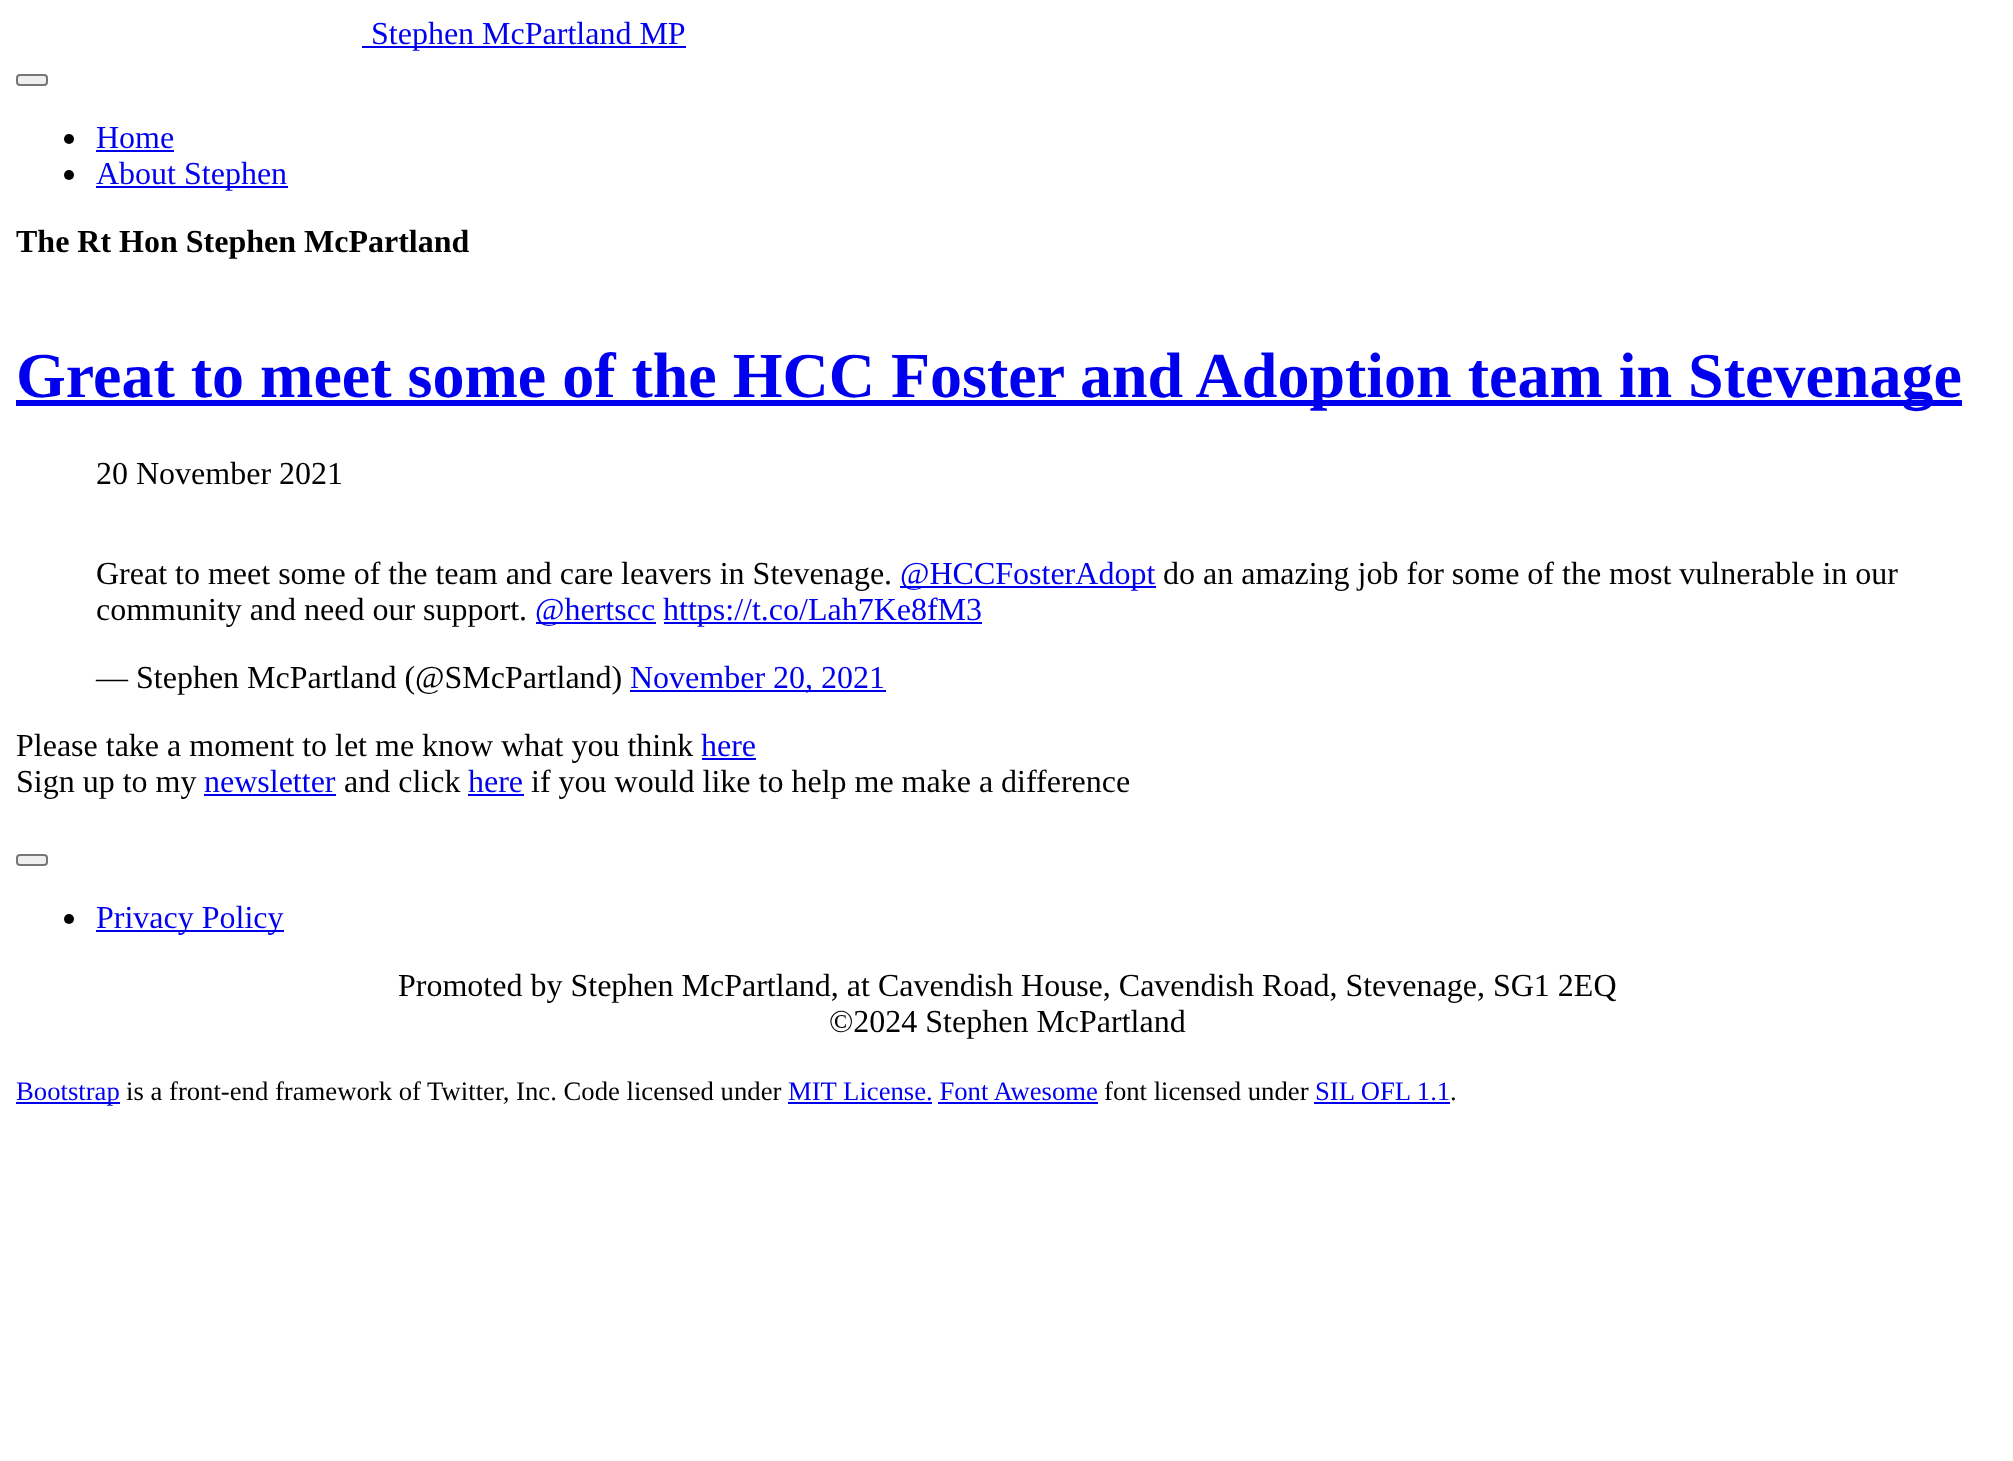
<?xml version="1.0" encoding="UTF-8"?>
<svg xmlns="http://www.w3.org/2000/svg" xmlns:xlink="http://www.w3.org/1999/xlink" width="2013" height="1461">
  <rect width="100%" height="100%" fill="#ffffff" />
  <rect x="362" y="46" width="324" height="2" fill="#0000ee" />
  <rect x="17" y="75" width="30" height="10" rx="3" fill="#efefef" stroke="#767676" stroke-width="2" />
  <circle cx="69" cy="139" r="5" fill="#000000" />
  <rect x="96" y="150" width="78" height="2" fill="#0000ee" />
  <circle cx="69" cy="175" r="5" fill="#000000" />
  <rect x="96" y="186" width="192" height="2" fill="#0000ee" />
  <rect x="16" y="400" width="1946" height="6" fill="#0000ee" />
  <rect x="900" y="586" width="256" height="2" fill="#0000ee" />
  <rect x="536" y="622" width="120" height="2" fill="#0000ee" />
  <rect x="664" y="622" width="318" height="2" fill="#0000ee" />
  <rect x="630" y="690" width="256" height="2" fill="#0000ee" />
  <rect x="702" y="758" width="54" height="2" fill="#0000ee" />
  <rect x="204" y="794" width="132" height="2" fill="#0000ee" />
  <rect x="468" y="794" width="56" height="2" fill="#0000ee" />
  <rect x="17" y="855" width="30" height="10" rx="3" fill="#efefef" stroke="#767676" stroke-width="2" />
  <circle cx="69" cy="919" r="5" fill="#000000" />
  <rect x="96" y="930" width="188" height="2" fill="#0000ee" />
  <rect x="16" y="1102" width="104" height="2" fill="#0000ee" />
  <rect x="788" y="1102" width="144" height="2" fill="#0000ee" />
  <rect x="938" y="1102" width="160" height="2" fill="#0000ee" />
  <rect x="1314" y="1102" width="136" height="2" fill="#0000ee" />
  <text x="371" y="44" style="font-family: Liberation Serif; font-size: 32px; fill: #0000ee">Stephen McPartland MP</text>
  <text x="96" y="148" style="font-family: Liberation Serif; font-size: 32px; fill: #0000ee">Home</text>
  <text x="96" y="184" style="font-family: Liberation Serif; font-size: 32px; fill: #0000ee">About Stephen</text>
  <text x="16" y="252" style="font-family: Liberation Serif; font-size: 32px; font-weight: bold; fill: #000000">The Rt Hon Stephen McPartland</text>
  <text x="16" y="397" style="font-family: Liberation Serif; font-size: 64px; font-weight: bold; fill: #0000ee">Great to meet some of the HCC Foster and Adoption team in Stevenage</text>
  <text x="96" y="484" style="font-family: Liberation Serif; font-size: 32px; fill: #000000">20 November 2021</text>
  <text x="96" y="584" style="font-family: Liberation Serif; font-size: 32px; fill: #000000">Great to meet some of the team and care leavers in Stevenage.</text>
  <text x="900" y="584" style="font-family: Liberation Serif; font-size: 32px; fill: #0000ee">@HCCFosterAdopt</text>
  <text x="1163" y="584" style="font-family: Liberation Serif; font-size: 32px; fill: #000000">do an amazing job for some of the most vulnerable in our</text>
  <text x="96" y="620" style="font-family: Liberation Serif; font-size: 32px; fill: #000000">community and need our support.</text>
  <text x="535" y="620" style="font-family: Liberation Serif; font-size: 32px; fill: #0000ee">@hertscc</text>
  <text x="663" y="620" style="font-family: Liberation Serif; font-size: 32px; fill: #0000ee">https://t.co/Lah7Ke8fM3</text>
  <text x="96" y="688" style="font-family: Liberation Serif; font-size: 32px; fill: #000000">— Stephen McPartland (@SMcPartland)</text>
  <text x="630" y="688" style="font-family: Liberation Serif; font-size: 32px; fill: #0000ee">November 20, 2021</text>
  <text x="16" y="756" style="font-family: Liberation Serif; font-size: 32px; fill: #000000">Please take a moment to let me know what you think</text>
  <text x="701" y="756" style="font-family: Liberation Serif; font-size: 32px; fill: #0000ee">here</text>
  <text x="16" y="792" style="font-family: Liberation Serif; font-size: 32px; fill: #000000">Sign up to my</text>
  <text x="204" y="792" style="font-family: Liberation Serif; font-size: 32px; fill: #0000ee">newsletter</text>
  <text x="344" y="792" style="font-family: Liberation Serif; font-size: 32px; fill: #000000">and click</text>
  <text x="468" y="792" style="font-family: Liberation Serif; font-size: 32px; fill: #0000ee">here</text>
  <text x="531" y="792" style="font-family: Liberation Serif; font-size: 32px; fill: #000000">if you would like to help me make a difference</text>
  <text x="96" y="928" style="font-family: Liberation Serif; font-size: 32px; fill: #0000ee">Privacy Policy</text>
  <text x="398" y="996" style="font-family: Liberation Serif; font-size: 32px; fill: #000000">Promoted by Stephen McPartland, at Cavendish House, Cavendish Road, Stevenage, SG1 2EQ</text>
  <text x="829" y="1032" style="font-family: Liberation Serif; font-size: 32px; fill: #000000">©2024 Stephen McPartland</text>
  <text x="16" y="1100" style="font-family: Liberation Serif; font-size: 26.7px; fill: #0000ee">Bootstrap</text>
  <text x="126" y="1100" style="font-family: Liberation Serif; font-size: 26.7px; fill: #000000">is a front-end framework of Twitter, Inc. Code licensed under</text>
  <text x="788" y="1100" style="font-family: Liberation Serif; font-size: 26.7px; fill: #0000ee">MIT License. Font Awesome</text>
  <text x="1104" y="1100" style="font-family: Liberation Serif; font-size: 26.7px; fill: #000000">font licensed under</text>
  <text x="1315" y="1100" style="font-family: Liberation Serif; font-size: 26.7px; fill: #0000ee">SIL OFL 1.1</text>
  <text x="1450" y="1100" style="font-family: Liberation Serif; font-size: 26.7px; fill: #000000">.</text>
</svg>
